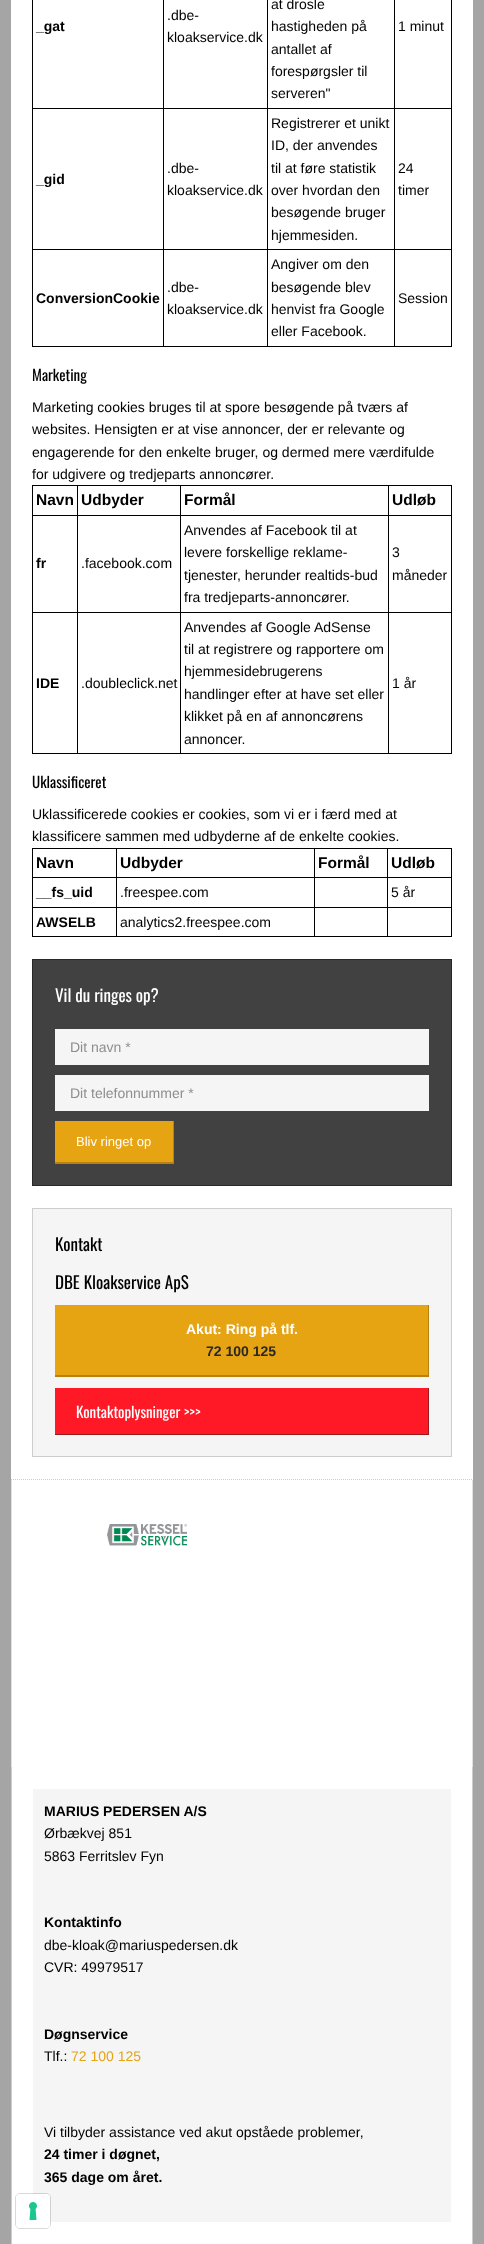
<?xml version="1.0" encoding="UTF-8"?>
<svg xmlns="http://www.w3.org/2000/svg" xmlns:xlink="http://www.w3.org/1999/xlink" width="484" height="2244">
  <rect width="100%" height="100%" fill="#a5a5a5" />
  <rect x="11" width="462" height="1480" fill="#ffffff" />
  <path d="M 11 1479.5 h 462" fill="none" stroke="#cdcdcd" stroke-dasharray="1 1" />
  <rect x="394" y="108" width="58" height="1" fill="#000000" />
  <rect x="394" y="249" width="58" height="1" fill="#000000" />
  <rect x="451" y="249" width="1" height="98" fill="#000000" />
  <rect x="394" y="346" width="58" height="1" fill="#000000" />
  <rect x="394" y="249" width="1" height="98" fill="#000000" />
  <rect x="267" y="249" width="128" height="1" fill="#000000" />
  <rect x="394" y="108" width="1" height="142" fill="#000000" />
  <rect x="267" y="108" width="128" height="1" fill="#000000" />
  <rect x="267" y="346" width="128" height="1" fill="#000000" />
  <rect x="267" y="249" width="1" height="98" fill="#000000" />
  <rect x="163" y="249" width="105" height="1" fill="#000000" />
  <rect x="267" y="108" width="1" height="142" fill="#000000" />
  <rect x="163" y="108" width="105" height="1" fill="#000000" />
  <rect x="163" y="346" width="105" height="1" fill="#000000" />
  <rect x="163" y="249" width="1" height="98" fill="#000000" />
  <rect x="32" y="249" width="132" height="1" fill="#000000" />
  <rect x="163" y="108" width="1" height="142" fill="#000000" />
  <rect x="32" y="108" width="132" height="1" fill="#000000" />
  <rect x="163" width="1" height="109" fill="#000000" />
  <rect x="267" width="1" height="109" fill="#000000" />
  <rect x="394" width="1" height="109" fill="#000000" />
  <rect x="32" y="346" width="132" height="1" fill="#000000" />
  <rect x="32" y="249" width="1" height="98" fill="#000000" />
  <rect x="32" width="1" height="250" fill="#000000" />
  <rect x="451" width="1" height="250" fill="#000000" />
  <rect x="388" y="485" width="64" height="1" fill="#000000" />
  <rect x="388" y="515" width="64" height="1" fill="#000000" />
  <rect x="388" y="612" width="64" height="1" fill="#000000" />
  <rect x="451" y="612" width="1" height="142" fill="#000000" />
  <rect x="388" y="753" width="64" height="1" fill="#000000" />
  <rect x="388" y="612" width="1" height="142" fill="#000000" />
  <rect x="180" y="612" width="209" height="1" fill="#000000" />
  <rect x="388" y="515" width="1" height="98" fill="#000000" />
  <rect x="180" y="515" width="209" height="1" fill="#000000" />
  <rect x="388" y="485" width="1" height="31" fill="#000000" />
  <rect x="180" y="485" width="209" height="1" fill="#000000" />
  <rect x="180" y="753" width="209" height="1" fill="#000000" />
  <rect x="180" y="612" width="1" height="142" fill="#000000" />
  <rect x="77" y="612" width="104" height="1" fill="#000000" />
  <rect x="180" y="515" width="1" height="98" fill="#000000" />
  <rect x="77" y="515" width="104" height="1" fill="#000000" />
  <rect x="180" y="485" width="1" height="31" fill="#000000" />
  <rect x="77" y="485" width="104" height="1" fill="#000000" />
  <rect x="77" y="753" width="104" height="1" fill="#000000" />
  <rect x="77" y="612" width="1" height="142" fill="#000000" />
  <rect x="32" y="612" width="46" height="1" fill="#000000" />
  <rect x="77" y="515" width="1" height="98" fill="#000000" />
  <rect x="32" y="515" width="46" height="1" fill="#000000" />
  <rect x="77" y="485" width="1" height="31" fill="#000000" />
  <rect x="32" y="485" width="46" height="1" fill="#000000" />
  <rect x="32" y="753" width="46" height="1" fill="#000000" />
  <rect x="32" y="612" width="1" height="142" fill="#000000" />
  <rect x="32" y="515" width="1" height="98" fill="#000000" />
  <rect x="32" y="485" width="1" height="31" fill="#000000" />
  <rect x="451" y="515" width="1" height="98" fill="#000000" />
  <rect x="451" y="485" width="1" height="31" fill="#000000" />
  <rect x="387" y="848" width="65" height="1" fill="#000000" />
  <rect x="387" y="877" width="65" height="1" fill="#000000" />
  <rect x="387" y="907" width="65" height="1" fill="#000000" />
  <rect x="451" y="907" width="1" height="30" fill="#000000" />
  <rect x="387" y="936" width="65" height="1" fill="#000000" />
  <rect x="387" y="907" width="1" height="30" fill="#000000" />
  <rect x="314" y="907" width="74" height="1" fill="#000000" />
  <rect x="387" y="877" width="1" height="31" fill="#000000" />
  <rect x="314" y="877" width="74" height="1" fill="#000000" />
  <rect x="387" y="848" width="1" height="30" fill="#000000" />
  <rect x="314" y="848" width="74" height="1" fill="#000000" />
  <rect x="314" y="936" width="74" height="1" fill="#000000" />
  <rect x="314" y="907" width="1" height="30" fill="#000000" />
  <rect x="116" y="907" width="199" height="1" fill="#000000" />
  <rect x="314" y="877" width="1" height="31" fill="#000000" />
  <rect x="116" y="877" width="199" height="1" fill="#000000" />
  <rect x="314" y="848" width="1" height="30" fill="#000000" />
  <rect x="116" y="848" width="199" height="1" fill="#000000" />
  <rect x="116" y="936" width="199" height="1" fill="#000000" />
  <rect x="116" y="907" width="1" height="30" fill="#000000" />
  <rect x="32" y="907" width="85" height="1" fill="#000000" />
  <rect x="116" y="877" width="1" height="31" fill="#000000" />
  <rect x="32" y="877" width="85" height="1" fill="#000000" />
  <rect x="116" y="848" width="1" height="30" fill="#000000" />
  <rect x="32" y="848" width="85" height="1" fill="#000000" />
  <rect x="32" y="936" width="85" height="1" fill="#000000" />
  <rect x="32" y="907" width="1" height="30" fill="#000000" />
  <rect x="32" y="877" width="1" height="31" fill="#000000" />
  <rect x="32" y="848" width="1" height="30" fill="#000000" />
  <rect x="451" y="877" width="1" height="31" fill="#000000" />
  <rect x="451" y="848" width="1" height="30" fill="#000000" />
  <rect x="32.5" y="959.5" width="419" height="226" fill="#414141" stroke="#282828" />
  <rect x="55" y="1029" width="374" height="36" fill="#f5f5f5" />
  <rect x="55" y="1075" width="374" height="36" fill="#f5f5f5" />
  <rect x="55" y="1121" width="118" height="41" fill="#e6a312" />
  <rect x="173" y="1121" width="1" height="43" fill="#b8820e" />
  <rect x="55" y="1162" width="119" height="2" fill="#b8820e" />
  <rect x="32.5" y="1208.5" width="419" height="248" fill="#f5f5f5" stroke="#cdcdcd" />
  <rect x="55" y="1305" width="373" height="70" fill="#e6a312" />
  <rect x="428" y="1305" width="1" height="72" fill="#b8820e" />
  <rect x="55" y="1375" width="374" height="2" fill="#b8820e" />
  <rect x="55" y="1388" width="373" height="46" fill="#ff1927" />
  <rect x="428" y="1388" width="1" height="47" fill="#9a1a1e" />
  <rect x="55" y="1434" width="374" height="1" fill="#9a1a1e" />
  <rect x="12" y="1480" width="460" height="764" fill="#ffffff" />
  <rect x="472" y="1480" width="1" height="287" fill="#e1e1e1" />
  <rect x="11" y="1480" width="1" height="287" fill="#e1e1e1" />
  <image x="107" y="1524" width="80" height="22" xlink:href="image1.png" />
  <rect x="472" y="1767" width="1" height="477" fill="#cdcdcd" />
  <rect x="11" y="1767" width="1" height="477" fill="#cdcdcd" />
  <rect x="33" y="1789" width="418" height="433" fill="#f5f5f5" />
  <rect x="15.5" y="2193.5" width="35" height="35" rx="4.5" fill="none" stroke="#000000" stroke-opacity="0.15" />
  <rect x="16" y="2194" width="34" height="34" rx="4" fill="#ffffff" />
  <image x="29" y="2202" width="8" height="18" xlink:href="image2.png" />
  <text x="36" y="31" style="font-family: Liberation Sans; font-size: 14px; font-weight: bold; fill: #000000">_gat</text>
  <text x="167" y="20" style="font-family: Liberation Sans; font-size: 14px; fill: #000000">.dbe-</text>
  <text x="167" y="42" style="font-family: Liberation Sans; font-size: 14px; fill: #000000">kloakservice.dk</text>
  <text x="271" y="9" style="font-family: Liberation Sans; font-size: 14px; fill: #000000">at drosle</text>
  <text x="271" y="31" style="font-family: Liberation Sans; font-size: 14px; fill: #000000">hastigheden på</text>
  <text x="271" y="54" style="font-family: Liberation Sans; font-size: 14px; fill: #000000">antallet af</text>
  <text x="271" y="76" style="font-family: Liberation Sans; font-size: 14px; fill: #000000">forespørgsler til</text>
  <text x="271" y="98" style="font-family: Liberation Sans; font-size: 14px; fill: #000000">serveren"</text>
  <text x="398" y="31" style="font-family: Liberation Sans; font-size: 14px; fill: #000000">1 minut</text>
  <text x="36" y="184" style="font-family: Liberation Sans; font-size: 14px; font-weight: bold; fill: #000000">_gid</text>
  <text x="167" y="173" style="font-family: Liberation Sans; font-size: 14px; fill: #000000">.dbe-</text>
  <text x="167" y="195" style="font-family: Liberation Sans; font-size: 14px; fill: #000000">kloakservice.dk</text>
  <text x="271" y="128" style="font-family: Liberation Sans; font-size: 14px; fill: #000000">Registrerer et unikt</text>
  <text x="271" y="150" style="font-family: Liberation Sans; font-size: 14px; fill: #000000">ID, der anvendes</text>
  <text x="271" y="173" style="font-family: Liberation Sans; font-size: 14px; fill: #000000">til at føre statistik</text>
  <text x="271" y="195" style="font-family: Liberation Sans; font-size: 14px; fill: #000000">over hvordan den</text>
  <text x="271" y="217" style="font-family: Liberation Sans; font-size: 14px; fill: #000000">besøgende bruger</text>
  <text x="271" y="240" style="font-family: Liberation Sans; font-size: 14px; fill: #000000">hjemmesiden.</text>
  <text x="398" y="173" style="font-family: Liberation Sans; font-size: 14px; fill: #000000">24</text>
  <text x="398" y="195" style="font-family: Liberation Sans; font-size: 14px; fill: #000000">timer</text>
  <text x="36" y="303" style="font-family: Liberation Sans; font-size: 14px; font-weight: bold; fill: #000000">ConversionCookie</text>
  <text x="167" y="292" style="font-family: Liberation Sans; font-size: 14px; fill: #000000">.dbe-</text>
  <text x="167" y="314" style="font-family: Liberation Sans; font-size: 14px; fill: #000000">kloakservice.dk</text>
  <text x="271" y="269" style="font-family: Liberation Sans; font-size: 14px; fill: #000000">Angiver om den</text>
  <text x="271" y="292" style="font-family: Liberation Sans; font-size: 14px; fill: #000000">besøgende blev</text>
  <text x="271" y="314" style="font-family: Liberation Sans; font-size: 14px; fill: #000000">henvist fra Google</text>
  <text x="271" y="336" style="font-family: Liberation Sans; font-size: 14px; fill: #000000">eller Facebook.</text>
  <text x="398" y="303" style="font-family: Liberation Sans; font-size: 14px; fill: #000000">Session</text>
  <text x="32" y="381" style="font-family: Oswald; font-size: 15px; fill: #000000">Marketing</text>
  <text x="32" y="412" style="font-family: Liberation Sans; font-size: 14px; fill: #000000">Marketing cookies bruges til at spore besøgende på tværs af</text>
  <text x="32" y="434" style="font-family: Liberation Sans; font-size: 14px; fill: #000000">websites. Hensigten er at vise annoncer, der er relevante og</text>
  <text x="32" y="457" style="font-family: Liberation Sans; font-size: 14px; fill: #000000">engagerende for den enkelte bruger, og dermed mere værdifulde</text>
  <text x="32" y="479" style="font-family: Liberation Sans; font-size: 14px; fill: #000000">for udgivere og tredjeparts annoncører.</text>
  <text x="36" y="505" style="font-family: Liberation Sans; font-size: 15.5px; font-weight: bold; fill: #000000">Navn</text>
  <text x="81" y="505" style="font-family: Liberation Sans; font-size: 15.5px; font-weight: bold; fill: #000000">Udbyder</text>
  <text x="184" y="505" style="font-family: Liberation Sans; font-size: 15.5px; font-weight: bold; fill: #000000">Formål</text>
  <text x="392" y="505" style="font-family: Liberation Sans; font-size: 15.5px; font-weight: bold; fill: #000000">Udløb</text>
  <text x="36" y="568" style="font-family: Liberation Sans; font-size: 14px; font-weight: bold; fill: #000000">fr</text>
  <text x="81" y="568" style="font-family: Liberation Sans; font-size: 14px; fill: #000000">.facebook.com</text>
  <text x="184" y="535" style="font-family: Liberation Sans; font-size: 14px; fill: #000000">Anvendes af Facebook til at</text>
  <text x="184" y="557" style="font-family: Liberation Sans; font-size: 14px; fill: #000000">levere forskellige reklame-</text>
  <text x="184" y="580" style="font-family: Liberation Sans; font-size: 14px; fill: #000000">tjenester, herunder realtids-bud</text>
  <text x="184" y="602" style="font-family: Liberation Sans; font-size: 14px; fill: #000000">fra tredjeparts-annoncører.</text>
  <text x="392" y="557" style="font-family: Liberation Sans; font-size: 14px; fill: #000000">3</text>
  <text x="392" y="580" style="font-family: Liberation Sans; font-size: 14px; fill: #000000">måneder</text>
  <text x="36" y="688" style="font-family: Liberation Sans; font-size: 14px; font-weight: bold; fill: #000000">IDE</text>
  <text x="81" y="688" style="font-family: Liberation Sans; font-size: 14px; fill: #000000">.doubleclick.net</text>
  <text x="184" y="632" style="font-family: Liberation Sans; font-size: 14px; fill: #000000">Anvendes af Google AdSense</text>
  <text x="184" y="654" style="font-family: Liberation Sans; font-size: 14px; fill: #000000">til at registrere og rapportere om</text>
  <text x="184" y="676" style="font-family: Liberation Sans; font-size: 14px; fill: #000000">hjemmesidebrugerens</text>
  <text x="184" y="699" style="font-family: Liberation Sans; font-size: 14px; fill: #000000">handlinger efter at have set eller</text>
  <text x="184" y="721" style="font-family: Liberation Sans; font-size: 14px; fill: #000000">klikket på en af annoncørens</text>
  <text x="184" y="744" style="font-family: Liberation Sans; font-size: 14px; fill: #000000">annoncer.</text>
  <text x="392" y="688" style="font-family: Liberation Sans; font-size: 14px; fill: #000000">1 år</text>
  <text x="32" y="788" style="font-family: Oswald; font-size: 15px; fill: #000000">Uklassificeret</text>
  <text x="32" y="819" style="font-family: Liberation Sans; font-size: 14px; fill: #000000">Uklassificerede cookies er cookies, som vi er i færd med at</text>
  <text x="32" y="841" style="font-family: Liberation Sans; font-size: 14px; fill: #000000">klassificere sammen med udbyderne af de enkelte cookies.</text>
  <text x="36" y="868" style="font-family: Liberation Sans; font-size: 15.5px; font-weight: bold; fill: #000000">Navn</text>
  <text x="120" y="868" style="font-family: Liberation Sans; font-size: 15.5px; font-weight: bold; fill: #000000">Udbyder</text>
  <text x="318" y="868" style="font-family: Liberation Sans; font-size: 15.5px; font-weight: bold; fill: #000000">Formål</text>
  <text x="391" y="868" style="font-family: Liberation Sans; font-size: 15.5px; font-weight: bold; fill: #000000">Udløb</text>
  <text x="36" y="897" style="font-family: Liberation Sans; font-size: 14px; font-weight: bold; fill: #000000">__fs_uid</text>
  <text x="120" y="897" style="font-family: Liberation Sans; font-size: 14px; fill: #000000">.freespee.com</text>
  <text x="391" y="897" style="font-family: Liberation Sans; font-size: 14px; fill: #000000">5 år</text>
  <text x="36" y="927" style="font-family: Liberation Sans; font-size: 14px; font-weight: bold; fill: #000000">AWSELB</text>
  <text x="120" y="927" style="font-family: Liberation Sans; font-size: 14px; fill: #000000">analytics2.freespee.com</text>
  <text x="55" y="1002" style="font-family: Oswald; font-size: 17px; fill: #ffffff">Vil du ringes op?</text>
  <text x="70" y="1052" style="font-family: Liberation Sans; font-size: 14px; fill: #8e8e8e">Dit navn *</text>
  <text x="70" y="1098" style="font-family: Liberation Sans; font-size: 14px; fill: #8e8e8e">Dit telefonnummer *</text>
  <text x="76" y="1146" style="font-family: Liberation Sans; font-size: 13px; fill: #ffffff">Bliv ringet op</text>
  <text x="55" y="1251" style="font-family: Oswald; font-size: 17px; fill: #000000">Kontakt</text>
  <text x="55" y="1289" style="font-family: Oswald; font-size: 17px; fill: #000000">DBE Kloakservice ApS</text>
  <text x="186" y="1334" style="font-family: Liberation Sans; font-size: 14px; font-weight: bold; fill: #ffffff">Akut: Ring på tlf.</text>
  <text x="206" y="1356" style="font-family: Liberation Sans; font-size: 14px; font-weight: bold; fill: #282828">72 100 125</text>
  <text x="76" y="1418" style="font-family: Oswald; font-size: 15px; fill: #ffffff">Kontaktoplysninger &gt;&gt;&gt;</text>
  <text x="44" y="1816" style="font-family: Liberation Sans; font-size: 14px; font-weight: bold; fill: #000000">MARIUS PEDERSEN A/S</text>
  <text x="44" y="1838" style="font-family: Liberation Sans; font-size: 14px; fill: #000000">Ørbækvej 851</text>
  <text x="44" y="1861" style="font-family: Liberation Sans; font-size: 14px; fill: #000000">5863 Ferritslev Fyn</text>
  <text x="44" y="1927" style="font-family: Liberation Sans; font-size: 14px; font-weight: bold; fill: #000000">Kontaktinfo</text>
  <text x="44" y="1950" style="font-family: Liberation Sans; font-size: 14px; fill: #000000">dbe-kloak@mariuspedersen.dk</text>
  <text x="44" y="1972" style="font-family: Liberation Sans; font-size: 14px; fill: #000000">CVR: 49979517</text>
  <text x="44" y="2039" style="font-family: Liberation Sans; font-size: 14px; font-weight: bold; fill: #000000">Døgnservice</text>
  <text x="44" y="2061" style="font-family: Liberation Sans; font-size: 14px; fill: #000000">Tlf.:</text>
  <text x="71" y="2061" style="font-family: Liberation Sans; font-size: 14px; fill: #e6a312">72 100 125</text>
  <text x="44" y="2137" style="font-family: Liberation Sans; font-size: 14px; fill: #000000">Vi tilbyder assistance ved akut opståede problemer,</text>
  <text x="44" y="2159" style="font-family: Liberation Sans; font-size: 14px; font-weight: bold; fill: #000000">24 timer i døgnet,</text>
  <text x="44" y="2182" style="font-family: Liberation Sans; font-size: 14px; font-weight: bold; fill: #000000">365 dage om året.</text>
</svg>
